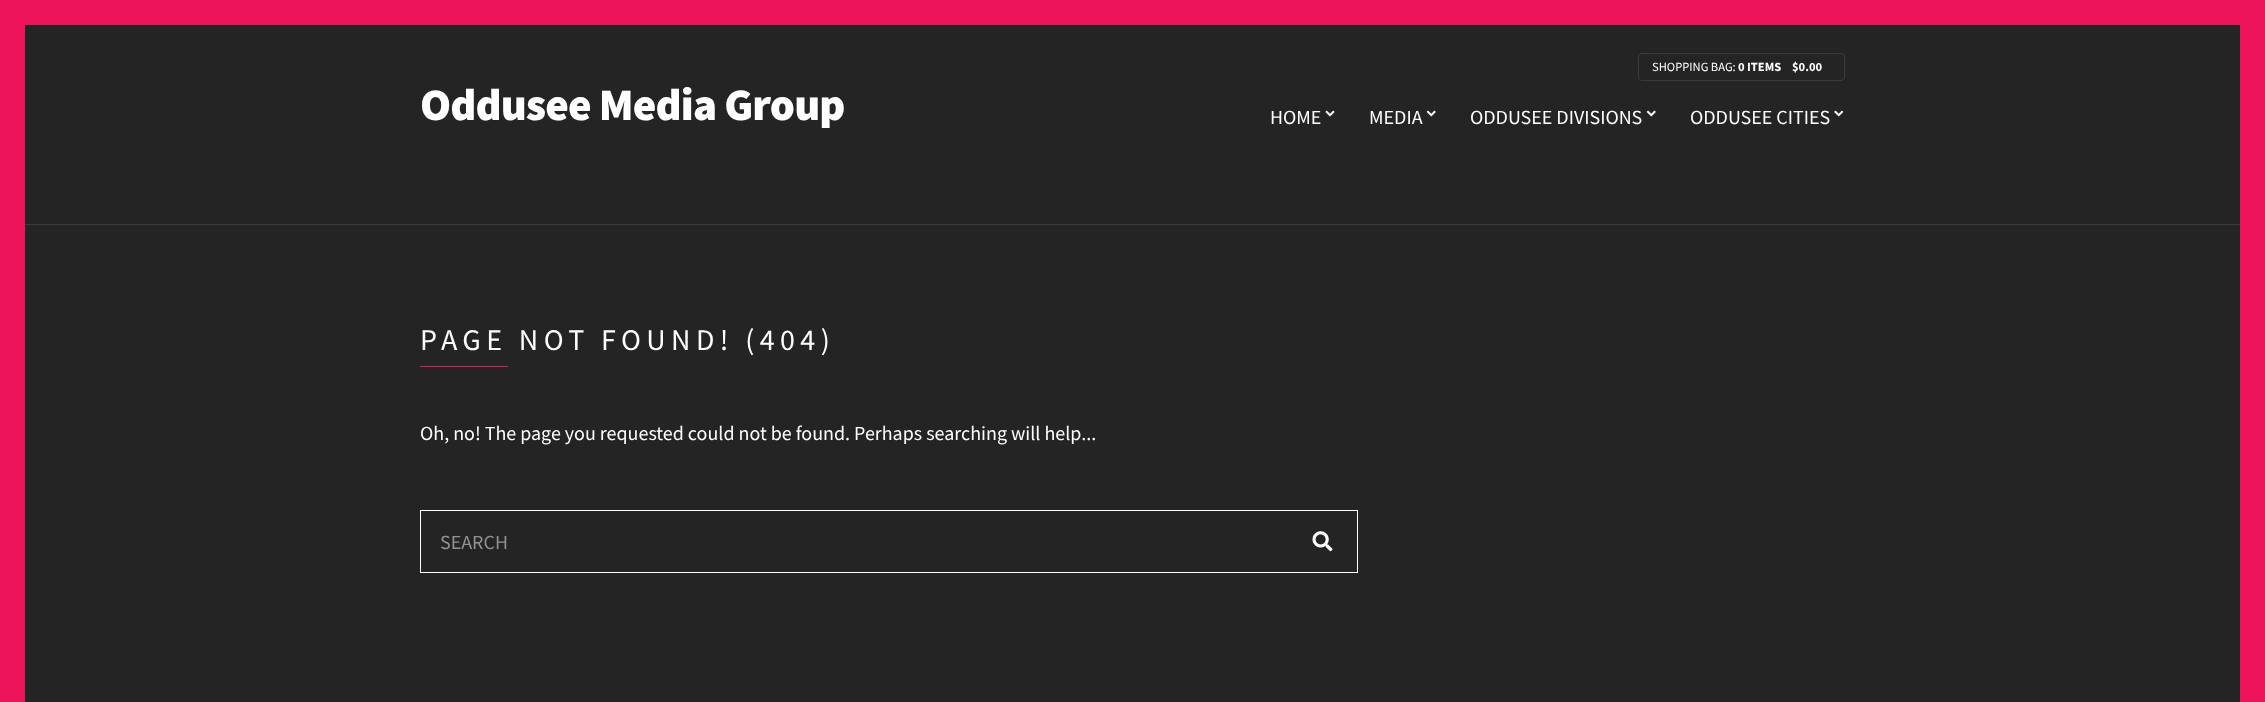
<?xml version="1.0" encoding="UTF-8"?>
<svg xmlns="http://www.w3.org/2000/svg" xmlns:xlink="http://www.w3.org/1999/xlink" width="2265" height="702">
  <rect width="100%" height="100%" fill="#242424" />
  <rect x="12.5" y="12.5" width="2240" height="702" fill="none" stroke="#ed145b" stroke-width="25" />
  <rect x="25" y="224" width="2215" height="1" fill="#3a3a3a" />
  <rect x="1638.5" y="53.5" width="206" height="27" rx="3.5" fill="none" stroke="#3a3a3a" />
  <image x="1325" y="110" width="10" height="7" xlink:href="image1.png" />
  <image x="1426" y="110" width="10" height="7" xlink:href="image2.png" />
  <image x="1646" y="110" width="10" height="7" xlink:href="image2.png" />
  <image x="1834" y="110" width="10" height="7" xlink:href="image3.png" />
  <rect x="420" y="366" width="88" height="1" fill="#ed145b" />
  <rect x="420.5" y="510.5" width="937" height="62" fill="none" stroke="#ffffff" />
  <image x="1312" y="531" width="21" height="21" xlink:href="image4.png" />
  <text x="420" y="120" style="font-family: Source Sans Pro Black; font-size: 45px; font-weight: 900; letter-spacing: -0.9px; fill: #ffffff">Oddusee Media Group</text>
  <text x="1652" y="71" style="font-family: Source Sans Pro; font-size: 12.5px; fill: #ffffff">SHOPPING BAG:</text>
  <text x="1738" y="71" style="font-family: Source Sans Pro; font-size: 12.5px; font-weight: bold; fill: #ffffff">0 ITEMS</text>
  <text x="1792" y="71" style="font-family: Source Sans Pro; font-size: 12.5px; font-weight: bold; fill: #ffffff">$0.00</text>
  <text x="1270" y="124" style="font-family: Source Sans Pro; font-size: 20px; fill: #ffffff">HOME</text>
  <text x="1369" y="124" style="font-family: Source Sans Pro; font-size: 20px; fill: #ffffff">MEDIA</text>
  <text x="1470" y="124" style="font-family: Source Sans Pro; font-size: 20px; fill: #ffffff">ODDUSEE DIVISIONS</text>
  <text x="1690" y="124" style="font-family: Source Sans Pro; font-size: 20px; fill: #ffffff">ODDUSEE CITIES</text>
  <text x="420" y="350" style="font-family: Source Sans Pro; font-size: 30px; letter-spacing: 5.4px; fill: #ffffff">PAGE NOT FOUND! (404)</text>
  <text x="420" y="440" style="font-family: Source Sans Pro; font-size: 20px; fill: #ffffff">Oh, no! The page you requested could not be found. Perhaps searching will help...</text>
  <text x="440" y="549" style="font-family: Source Sans Pro; font-size: 20px; fill: #929292">SEARCH</text>
</svg>
